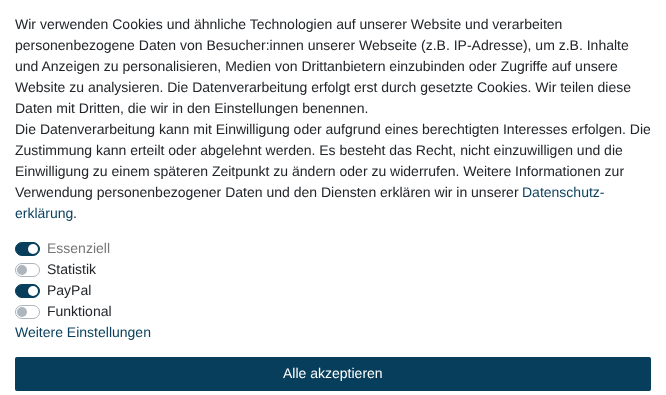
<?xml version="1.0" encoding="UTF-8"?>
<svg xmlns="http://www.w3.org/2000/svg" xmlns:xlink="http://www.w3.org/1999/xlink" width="666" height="395">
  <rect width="100%" height="100%" fill="#ffffff" />
  <rect x="15.5" y="242.5" width="24" height="13" rx="6.5" fill="#063e5c" stroke="#063e5c" />
  <circle cx="33" cy="249" r="5" fill="#ffffff" />
  <rect x="15.5" y="263.5" width="24" height="13" rx="6.5" fill="none" stroke="#adb5bd" />
  <circle cx="22" cy="270" r="5" fill="#adb5bd" />
  <rect x="15.5" y="284.5" width="24" height="13" rx="6.5" fill="#063e5c" stroke="#063e5c" />
  <circle cx="33" cy="291" r="5" fill="#ffffff" />
  <rect x="15.5" y="305.5" width="24" height="13" rx="6.5" fill="none" stroke="#adb5bd" />
  <circle cx="22" cy="312" r="5" fill="#adb5bd" />
  <rect x="15.5" y="357.5" width="635" height="33" rx="1" fill="#063e5c" stroke="#063e5c" />
  <text x="15" y="29" style="font-family: Liberation Sans; font-size: 14px; fill: #212529">Wir verwenden Cookies und ähnliche Technologien auf unserer Website und verarbeiten</text>
  <text x="15" y="50" style="font-family: Liberation Sans; font-size: 14px; fill: #212529">personenbezogene Daten von Besucher:innen unserer Webseite (z.B. IP-Adresse), um z.B. Inhalte</text>
  <text x="15" y="71" style="font-family: Liberation Sans; font-size: 14px; fill: #212529">und Anzeigen zu personalisieren, Medien von Drittanbietern einzubinden oder Zugriffe auf unsere</text>
  <text x="15" y="92" style="font-family: Liberation Sans; font-size: 14px; fill: #212529">Website zu analysieren. Die Datenverarbeitung erfolgt erst durch gesetzte Cookies. Wir teilen diese</text>
  <text x="15" y="113" style="font-family: Liberation Sans; font-size: 14px; fill: #212529">Daten mit Dritten, die wir in den Einstellungen benennen.</text>
  <text x="15" y="134" style="font-family: Liberation Sans; font-size: 14px; fill: #212529">Die Datenverarbeitung kann mit Einwilligung oder aufgrund eines berechtigten Interesses erfolgen. Die</text>
  <text x="15" y="155" style="font-family: Liberation Sans; font-size: 14px; fill: #212529">Zustimmung kann erteilt oder abgelehnt werden. Es besteht das Recht, nicht einzuwilligen und die</text>
  <text x="15" y="176" style="font-family: Liberation Sans; font-size: 14px; fill: #212529">Einwilligung zu einem späteren Zeitpunkt zu ändern oder zu widerrufen. Weitere Informationen zur</text>
  <text x="15" y="197" style="font-family: Liberation Sans; font-size: 14px; fill: #212529">Verwendung personenbezogener Daten und den Diensten erklären wir in unserer</text>
  <text x="522" y="197" style="font-family: Liberation Sans; font-size: 14px; fill: #063e5c">Datenschutz-</text>
  <text x="15" y="218" style="font-family: Liberation Sans; font-size: 14px; fill: #063e5c">erklärung</text>
  <text x="73" y="218" style="font-family: Liberation Sans; font-size: 14px; fill: #212529">.</text>
  <text x="47" y="253" style="font-family: Liberation Sans; font-size: 14px; fill: #767676">Essenziell</text>
  <text x="47" y="274" style="font-family: Liberation Sans; font-size: 14px; fill: #212529">Statistik</text>
  <text x="47" y="295" style="font-family: Liberation Sans; font-size: 14px; fill: #212529">PayPal</text>
  <text x="47" y="316" style="font-family: Liberation Sans; font-size: 14px; fill: #212529">Funktional</text>
  <text x="15" y="337" style="font-family: Liberation Sans; font-size: 14px; fill: #063e5c">Weitere Einstellungen</text>
  <text x="283" y="378" style="font-family: Liberation Sans; font-size: 14px; fill: #ffffff">Alle akzeptieren</text>
</svg>
